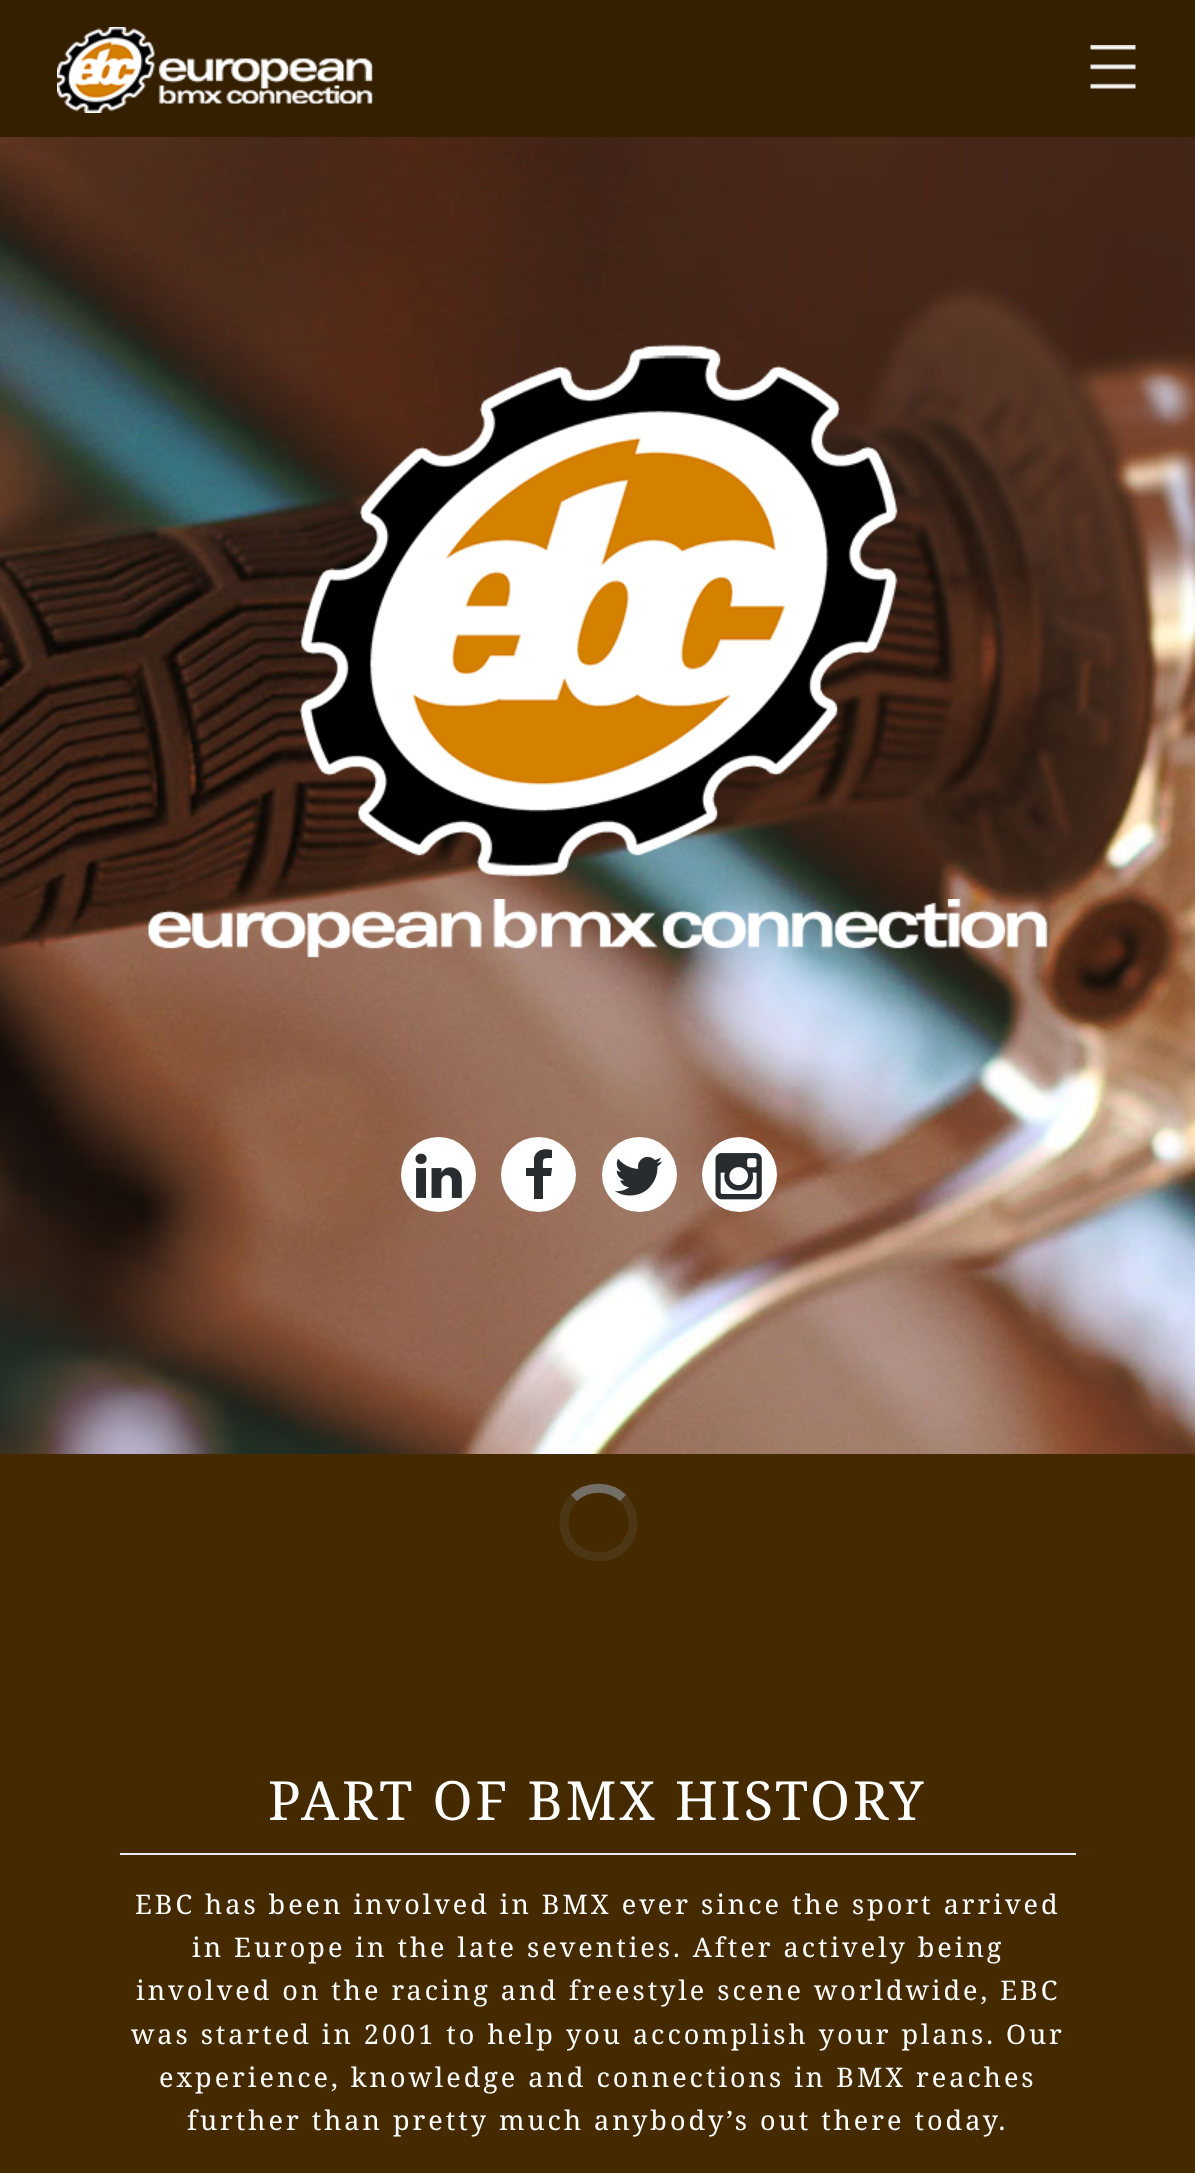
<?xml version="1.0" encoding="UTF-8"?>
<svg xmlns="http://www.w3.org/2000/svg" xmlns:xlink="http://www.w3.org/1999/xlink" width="1195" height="2173">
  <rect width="100%" height="100%" fill="#ffffff" />
  <image x="0" y="137" width="1195" height="1317" xlink:href="image1.png" />
  <rect width="1195" height="137" fill="#341f00" />
  <image x="57" y="27" width="316" height="86" xlink:href="image2.png" />
  <image x="1090" y="45" width="46" height="44" xlink:href="image3.png" />
  <image x="299" y="344" width="599" height="533" xlink:href="image4.png" />
  <image x="148" y="899" width="901" height="59" xlink:href="image5.png" />
  <circle cx="438.5" cy="1174.5" r="37.5" fill="#ffffff" />
  <image x="415" y="1153" width="47" height="45" xlink:href="image6.png" />
  <circle cx="538.5" cy="1174.5" r="37.5" fill="#ffffff" />
  <path d="M 552 1150 v 8 c -10 0 -9 0 -9 10 h 9 l -1 8 h -8 v 23 h -9 v -23 h -8 v -8 h 8 v -10 c 2 -9 11 -10 18 -8 z" fill="#282c2f" />
  <circle cx="639.5" cy="1174.5" r="37.5" fill="#ffffff" />
  <image x="615" y="1156" width="48" height="40" xlink:href="image7.png" />
  <circle cx="739.5" cy="1174.5" r="37.5" fill="#ffffff" />
  <image x="715" y="1153" width="47" height="47" xlink:href="image8.png" />
  <rect y="1454" width="1195" height="719" fill="#452a00" />
  <path d="M 574 1498 c 13.5 -13 35.5 -13 49 0" fill="none" stroke="#746f66" stroke-width="9" />
  <path d="M 623 1498 c 8 8 11.5 20 9.5 31.5 c -8 40 -68.5 34.5 -68.5 -7 c 0 -9 3.5 -18 10 -24.5" fill="none" stroke="#808080" stroke-opacity="0.15" stroke-width="9" />
  <rect x="120" y="1853" width="956" height="2" fill="#ededed" />
  <text x="268" y="1820" style="font-family: Noto Serif; font-size: 54px; letter-spacing: 3px; fill: #ffffff">PART OF BMX HISTORY</text>
  <text x="135" y="1914" style="font-family: Noto Serif; font-size: 27px; letter-spacing: 3px; fill: #ffffff">EBC has been involved in BMX ever since the sport arrived</text>
  <text x="192" y="1957" style="font-family: Noto Serif; font-size: 27px; letter-spacing: 3px; fill: #ffffff">in Europe in the late seventies. After actively being</text>
  <text x="136" y="2000" style="font-family: Noto Serif; font-size: 27px; letter-spacing: 3px; fill: #ffffff">involved on the racing and freestyle scene worldwide, EBC</text>
  <text x="131" y="2044" style="font-family: Noto Serif; font-size: 27px; letter-spacing: 3px; fill: #ffffff">was started in 2001 to help you accomplish your plans. Our</text>
  <text x="159" y="2087" style="font-family: Noto Serif; font-size: 27px; letter-spacing: 3px; fill: #ffffff">experience, knowledge and connections in BMX reaches</text>
  <text x="187" y="2130" style="font-family: Noto Serif; font-size: 27px; letter-spacing: 3px; fill: #ffffff">further than pretty much anybody’s out there today.</text>
</svg>
